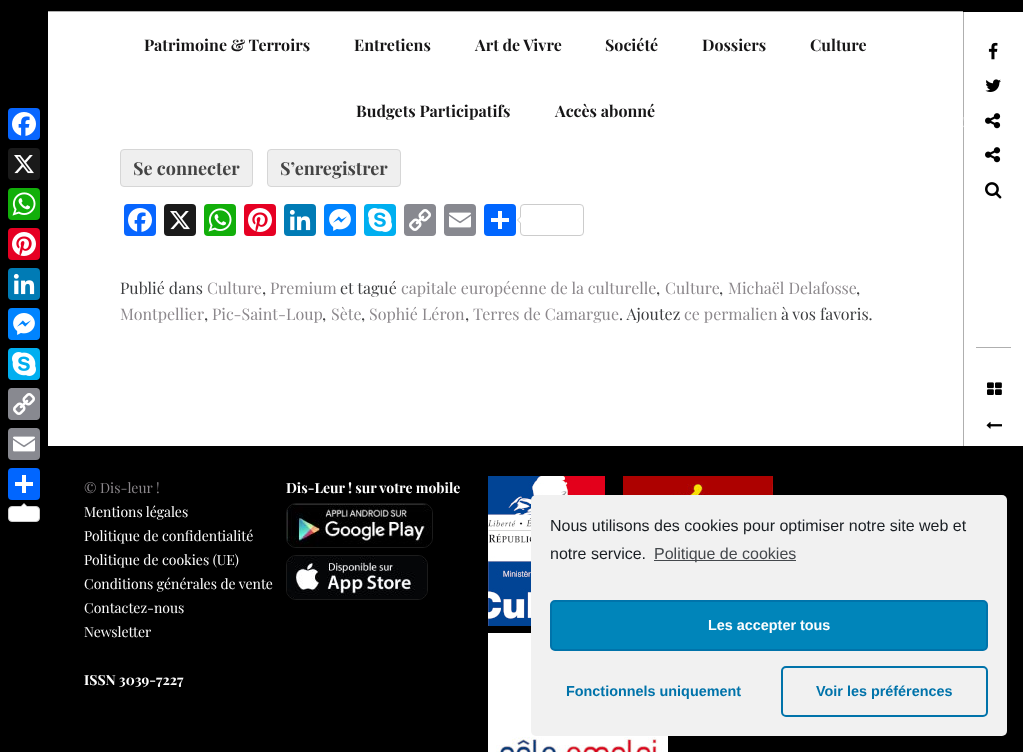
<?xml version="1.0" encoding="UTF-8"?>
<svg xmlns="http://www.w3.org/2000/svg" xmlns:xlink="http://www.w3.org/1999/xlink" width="1023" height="752">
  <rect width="100%" height="100%" fill="#ffffff" />
  <rect y="12" width="48" height="740" fill="#000000" />
  <rect width="1023" height="12" fill="#000000" />
  <rect x="8" y="108" width="32" height="32" rx="4" fill="#0866ff" />
  <image x="12" y="112" width="24" height="24" xlink:href="image1.png" />
  <rect x="8" y="148" width="32" height="32" rx="4" fill="#1a1a1a" />
  <image x="14" y="155" width="20" height="19" xlink:href="image2.png" />
  <rect x="8" y="188" width="32" height="32" rx="4" fill="#12af0a" />
  <image x="12" y="192" width="24" height="24" xlink:href="image3.png" />
  <rect x="8" y="228" width="32" height="32" rx="4" fill="#e60023" />
  <image x="12" y="232" width="24" height="24" xlink:href="image4.png" />
  <rect x="8" y="268" width="32" height="32" rx="4" fill="#007bb5" />
  <image x="13" y="273" width="22" height="22" xlink:href="image5.png" />
  <rect x="8" y="308" width="32" height="32" rx="4" fill="#0084ff" />
  <image x="13" y="313" width="22" height="22" xlink:href="image6.png" />
  <rect x="8" y="348" width="32" height="32" rx="4" fill="#00aff0" />
  <image x="12" y="352" width="24" height="24" xlink:href="image7.png" />
  <rect x="8" y="388" width="32" height="32" rx="4" fill="#888990" />
  <image x="13" y="393" width="22" height="22" xlink:href="image8.png" />
  <rect x="8" y="428" width="32" height="32" rx="4" fill="#888990" />
  <image x="13" y="436" width="22" height="16" xlink:href="image9.png" />
  <rect x="8" y="468" width="32" height="32" rx="4" fill="#0166ff" />
  <rect x="22" y="475" width="4" height="18" fill="#ffffff" />
  <rect x="15" y="482" width="18" height="4" fill="#ffffff" />
  <rect x="8.5" y="506.5" width="31" height="15" rx="3.5" fill="#ffffff" stroke="#cccccc" />
  <path d="M 28 507 h -8 l 4 -4 z" fill="#cccccc" />
  <path d="M 28 508 h -8 l 4 -4 z" fill="#ffffff" />
  <rect x="48" y="11" width="915" height="1" fill="#afafaf" />
  <rect x="120.5" y="149.5" width="132" height="37" rx="3.5" fill="#efefef" stroke="#d6d6d6" />
  <rect x="267.5" y="149.5" width="133" height="37" rx="3.5" fill="#efefef" stroke="#d6d6d6" />
  <rect x="124" y="204" width="32" height="32" rx="4" fill="#0866ff" />
  <image x="128" y="208" width="24" height="24" xlink:href="image1.png" />
  <rect x="164" y="204" width="32" height="32" rx="4" fill="#1a1a1a" />
  <image x="170" y="211" width="20" height="19" xlink:href="image2.png" />
  <rect x="204" y="204" width="32" height="32" rx="4" fill="#12af0a" />
  <image x="208" y="208" width="24" height="24" xlink:href="image3.png" />
  <rect x="244" y="204" width="32" height="32" rx="4" fill="#e60023" />
  <image x="248" y="208" width="24" height="24" xlink:href="image4.png" />
  <rect x="284" y="204" width="32" height="32" rx="4" fill="#007bb5" />
  <image x="289" y="209" width="22" height="22" xlink:href="image5.png" />
  <rect x="324" y="204" width="32" height="32" rx="4" fill="#0084ff" />
  <image x="329" y="209" width="22" height="22" xlink:href="image6.png" />
  <rect x="364" y="204" width="32" height="32" rx="4" fill="#00aff0" />
  <image x="368" y="208" width="24" height="24" xlink:href="image7.png" />
  <rect x="404" y="204" width="32" height="32" rx="4" fill="#888990" />
  <image x="409" y="209" width="22" height="22" xlink:href="image8.png" />
  <rect x="444" y="204" width="32" height="32" rx="4" fill="#888990" />
  <image x="449" y="212" width="22" height="16" xlink:href="image9.png" />
  <rect x="484" y="204" width="32" height="32" rx="4" fill="#0166ff" />
  <rect x="498" y="211" width="4" height="18" fill="#ffffff" />
  <rect x="491" y="218" width="18" height="4" fill="#ffffff" />
  <rect x="520.5" y="204.5" width="63" height="31" rx="3.5" fill="none" stroke="#cccccc" />
  <path d="M 521 216 v 8 l -4 -4 z" fill="#cccccc" />
  <path d="M 522 216 v 8 l -4 -4 z" fill="#ffffff" />
  <rect x="48" y="446" width="975" height="306" fill="#000000" />
  <rect x="286.5" y="503.5" width="146" height="44" rx="9.5" fill="none" stroke="#1c1c1c" />
  <image x="287" y="504" width="145" height="43" xlink:href="image10.png" />
  <rect x="286.5" y="555.5" width="141" height="44" rx="9.5" fill="none" stroke="#1c1c1c" />
  <image x="287" y="556" width="140" height="43" xlink:href="image11.png" />
  <image x="488" y="476" width="117" height="150" xlink:href="image12.png" />
  <image x="623" y="476" width="150" height="19" xlink:href="image13.png" />
  <image x="488" y="633" width="180" height="119" xlink:href="image14.png" />
  <rect x="963" y="12" width="1" height="434" fill="#afafaf" />
  <image x="988" y="42" width="10" height="18" xlink:href="image15.png" />
  <image x="985" y="79" width="16" height="13" xlink:href="image16.png" />
  <image x="985" y="113" width="16" height="16" xlink:href="image17.png" />
  <image x="985" y="147" width="16" height="16" xlink:href="image17.png" />
  <image x="985" y="182" width="17" height="17" xlink:href="image18.png" />
  <rect x="976" y="347" width="35" height="1" fill="#afafaf" />
  <image x="987" y="382" width="15" height="13" xlink:href="image19.png" />
  <image x="986" y="421" width="16" height="8" xlink:href="image20.png" />
  <rect x="531" y="495" width="476" height="241" rx="5" fill="#f1f1f1" />
  <rect x="654" y="560" width="142" height="1" fill="#44484c" />
  <rect x="551" y="601" width="436" height="49" rx="4" fill="#0085ba" stroke="#0073aa" stroke-width="2" />
  <rect x="782" y="667" width="205" height="49" rx="4" fill="none" stroke="#0073aa" stroke-width="2" />
  <text x="144" y="51" style="font-family: Playfair Display; font-size: 16px; font-weight: bold; fill: #171617">Patrimoine &amp; Terroirs</text>
  <text x="354" y="51" style="font-family: Playfair Display; font-size: 16px; font-weight: bold; fill: #171617">Entretiens</text>
  <text x="475" y="51" style="font-family: Playfair Display; font-size: 16px; font-weight: bold; fill: #171617">Art de Vivre</text>
  <text x="605" y="51" style="font-family: Playfair Display; font-size: 16px; font-weight: bold; fill: #171617">Société</text>
  <text x="702" y="51" style="font-family: Playfair Display; font-size: 16px; font-weight: bold; fill: #171617">Dossiers</text>
  <text x="810" y="51" style="font-family: Playfair Display; font-size: 16px; font-weight: bold; fill: #171617">Culture</text>
  <text x="356" y="117" style="font-family: Playfair Display; font-size: 16px; font-weight: bold; fill: #171617">Budgets Participatifs</text>
  <text x="555" y="117" style="font-family: Playfair Display; font-size: 16px; font-weight: bold; fill: #171617">Accès abonné</text>
  <text x="133" y="175" style="font-family: Playfair Display; font-size: 18px; font-weight: bold; fill: #444444">Se connecter</text>
  <text x="280" y="175" style="font-family: Playfair Display; font-size: 18px; font-weight: bold; fill: #444444">S’enregistrer</text>
  <text x="120" y="294" style="font-family: Playfair Display; font-size: 16px; fill: #3d3e40">Publié dans</text>
  <text x="207" y="294" style="font-family: Playfair Display; font-size: 16px; fill: #8c888c">Culture</text>
  <text x="262" y="294" style="font-family: Playfair Display; font-size: 16px; fill: #3d3e40">,</text>
  <text x="270" y="294" style="font-family: Playfair Display; font-size: 16px; fill: #8c888c">Premium</text>
  <text x="340" y="294" style="font-family: Playfair Display; font-size: 16px; fill: #3d3e40">et tagué</text>
  <text x="401" y="294" style="font-family: Playfair Display; font-size: 16px; fill: #8c888c">capitale européenne de la culturelle</text>
  <text x="656" y="294" style="font-family: Playfair Display; font-size: 16px; fill: #3d3e40">,</text>
  <text x="665" y="294" style="font-family: Playfair Display; font-size: 16px; fill: #8c888c">Culture</text>
  <text x="719" y="294" style="font-family: Playfair Display; font-size: 16px; fill: #3d3e40">,</text>
  <text x="728" y="294" style="font-family: Playfair Display; font-size: 16px; fill: #8c888c">Michaël Delafosse</text>
  <text x="856" y="294" style="font-family: Playfair Display; font-size: 16px; fill: #3d3e40">,</text>
  <text x="120" y="320" style="font-family: Playfair Display; font-size: 16px; fill: #8c888c">Montpellier</text>
  <text x="204" y="320" style="font-family: Playfair Display; font-size: 16px; fill: #3d3e40">,</text>
  <text x="212" y="320" style="font-family: Playfair Display; font-size: 16px; fill: #8c888c">Pic-Saint-Loup</text>
  <text x="322" y="320" style="font-family: Playfair Display; font-size: 16px; fill: #3d3e40">,</text>
  <text x="331" y="320" style="font-family: Playfair Display; font-size: 16px; fill: #8c888c">Sète</text>
  <text x="361" y="320" style="font-family: Playfair Display; font-size: 16px; fill: #3d3e40">,</text>
  <text x="369" y="320" style="font-family: Playfair Display; font-size: 16px; fill: #8c888c">Sophié Léron</text>
  <text x="465" y="320" style="font-family: Playfair Display; font-size: 16px; fill: #3d3e40">,</text>
  <text x="473" y="320" style="font-family: Playfair Display; font-size: 16px; fill: #8c888c">Terres de Camargue</text>
  <text x="619" y="320" style="font-family: Playfair Display; font-size: 16px; fill: #3d3e40">. Ajoutez</text>
  <text x="684" y="320" style="font-family: Playfair Display; font-size: 16px; fill: #8c888c">ce permalien</text>
  <text x="781" y="320" style="font-family: Playfair Display; font-size: 16px; fill: #3d3e40">à vos favoris.</text>
  <text x="84" y="493" style="font-family: Playfair Display; font-size: 14px; fill: #8c888c">© Dis-leur !</text>
  <text x="84" y="517" style="font-family: Playfair Display; font-size: 14px; fill: #fdfdfd">Mentions légales</text>
  <text x="84" y="541" style="font-family: Playfair Display; font-size: 14px; fill: #fdfdfd">Politique de confidentialité</text>
  <text x="84" y="565" style="font-family: Playfair Display; font-size: 14px; fill: #fdfdfd">Politique de cookies (UE)</text>
  <text x="84" y="589" style="font-family: Playfair Display; font-size: 14px; fill: #fdfdfd">Conditions générales de vente</text>
  <text x="84" y="613" style="font-family: Playfair Display; font-size: 14px; fill: #fdfdfd">Contactez-nous</text>
  <text x="84" y="637" style="font-family: Playfair Display; font-size: 14px; fill: #fdfdfd">Newsletter</text>
  <text x="84" y="685" style="font-family: Playfair Display; font-size: 14px; font-weight: bold; fill: #fdfdfd">ISSN 3039-7227</text>
  <text x="286" y="493" style="font-family: Playfair Display; font-size: 14px; font-weight: bold; fill: #fdfdfd">Dis-Leur ! sur votre mobile</text>
  <text x="961" y="127" style="font-family: Playfair Display; font-size: 13px; fill: #fdfdfd">!</text>
  <text x="550" y="531" style="font-family: Liberation Sans; font-size: 16px; fill: #191e23">Nous utilisons des cookies pour optimiser notre site web et</text>
  <text x="550" y="559" style="font-family: Liberation Sans; font-size: 16px; fill: #191e23">notre service.</text>
  <text x="654" y="559" style="font-family: Liberation Sans; font-size: 16px; fill: #44484c">Politique de cookies</text>
  <text x="708" y="630" style="font-family: Liberation Sans; font-size: 14.4px; font-weight: bold; fill: #fdfdfd">Les accepter tous</text>
  <text x="566" y="696" style="font-family: Liberation Sans; font-size: 14.4px; font-weight: bold; fill: #0073aa">Fonctionnels uniquement</text>
  <text x="816" y="696" style="font-family: Liberation Sans; font-size: 14.4px; font-weight: bold; fill: #0073aa">Voir les préférences</text>
</svg>
